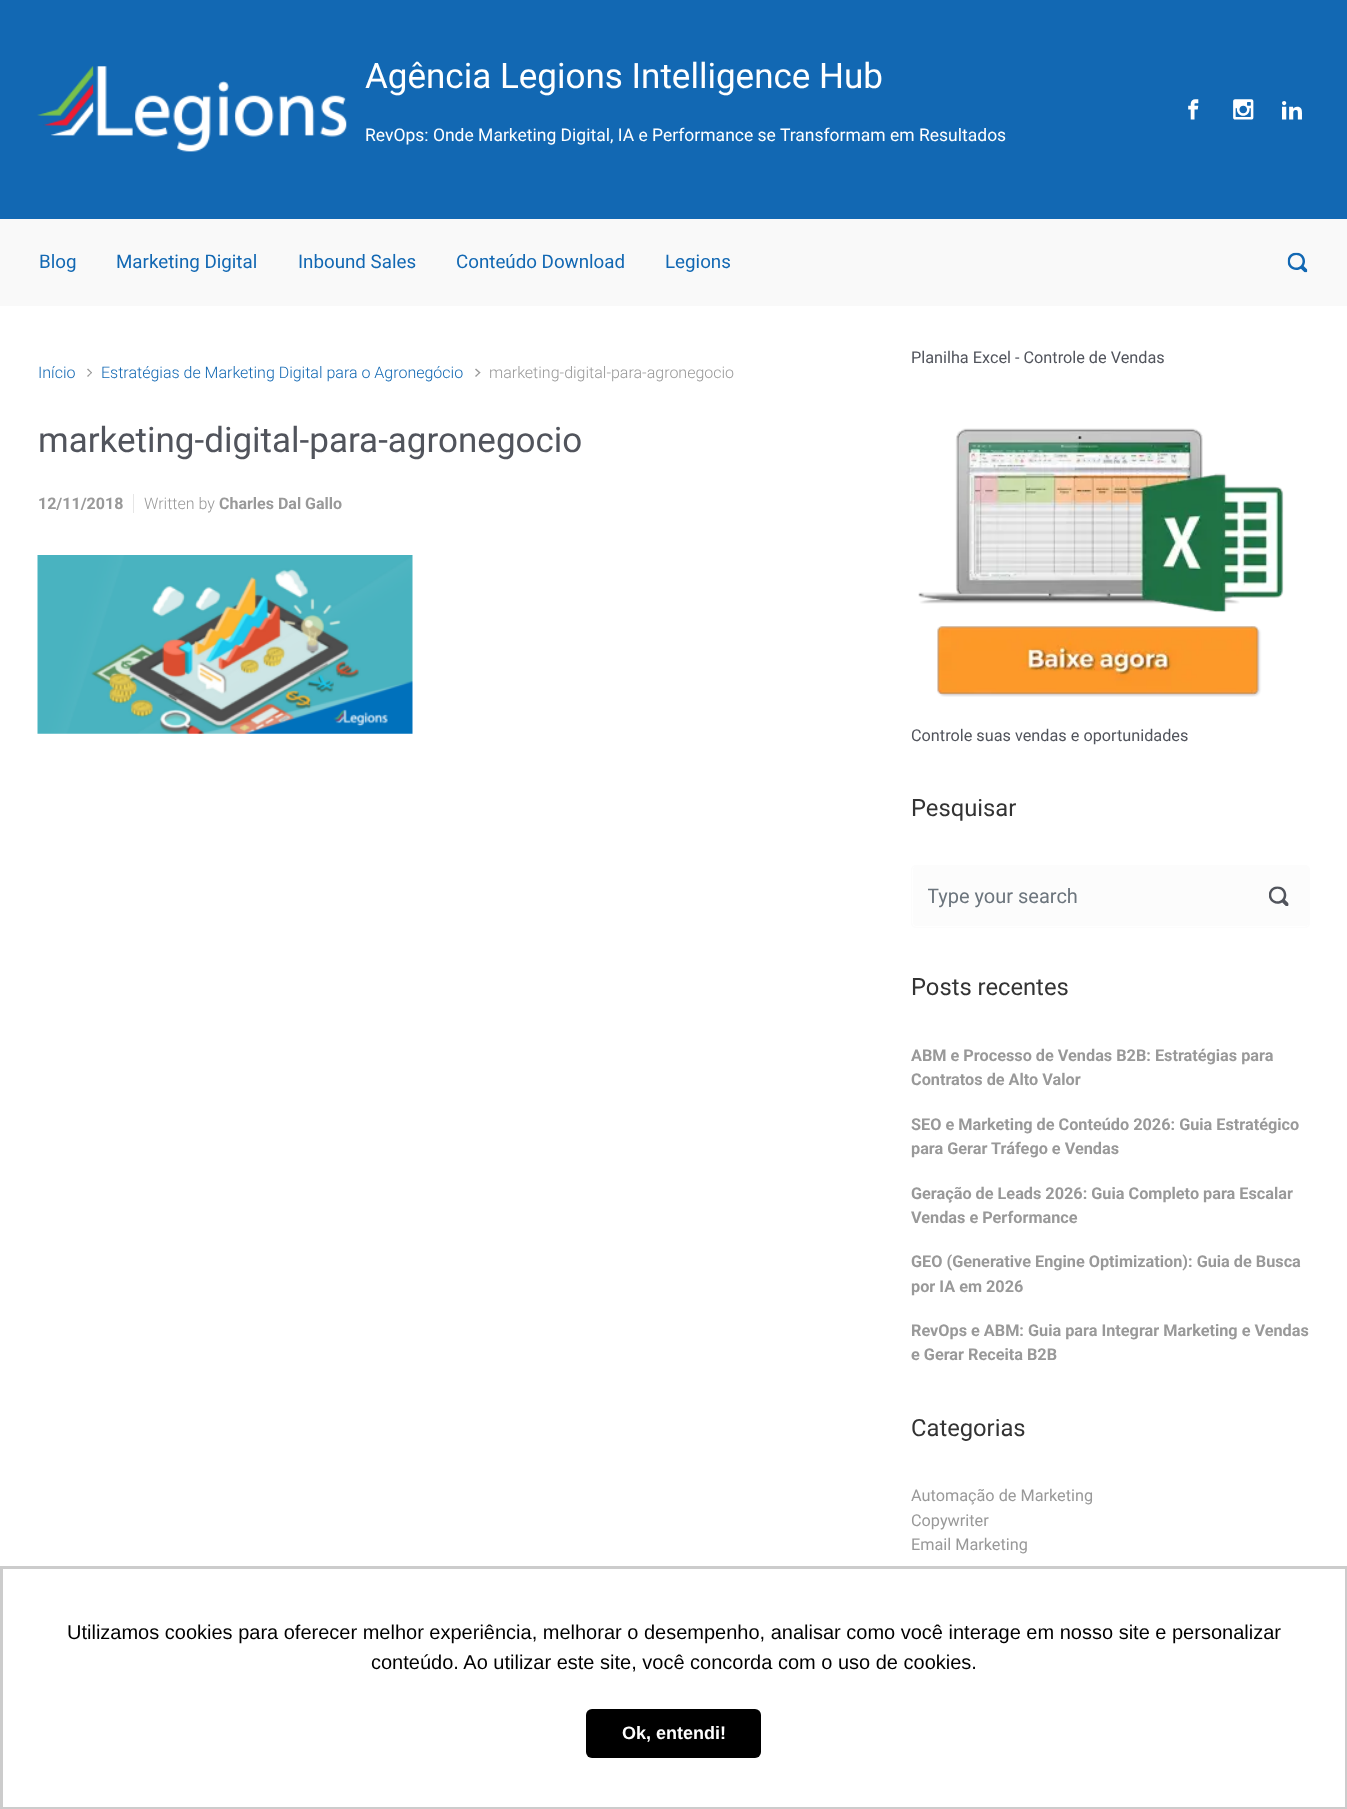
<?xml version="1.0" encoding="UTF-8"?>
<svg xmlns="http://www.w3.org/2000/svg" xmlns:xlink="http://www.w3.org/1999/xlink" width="1347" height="1809">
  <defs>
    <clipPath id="clip1"><rect x="928" y="884" width="366" height="24" /></clipPath>
  </defs>
  <rect width="100%" height="100%" fill="#f9f9f9" />
  <rect width="1347" height="219" fill="#1268b3" />
  <image x="37" y="66" width="310" height="86" xlink:href="image1.png" />
  <image x="1188" y="99" width="11" height="21" xlink:href="image2.png" />
  <image x="1233" y="99" width="21" height="21" xlink:href="image3.png" />
  <image x="1282" y="101" width="20" height="19" xlink:href="image4.png" />
  <image x="1287" y="252" width="21" height="21" xlink:href="image5.png" />
  <rect y="306" width="1347" height="1260" fill="#ffffff" />
  <path d="M 87 369.5 l 1 -1 l 4 4 l -0.5 1 z" fill="#999999" />
  <path d="M 87 376 l 4.5 -4 l 0.5 0.5 l -4 4.5 z" fill="#999999" />
  <path d="M 475 369.5 l 1 -1 l 4.5 4 l -1 1 z" fill="#999999" />
  <path d="M 475 376 l 4.5 -4 l 1 0.5 l -4.5 4.5 z" fill="#999999" />
  <rect x="133" y="494" width="1" height="19" fill="#e6e6e6" />
  <image x="37" y="555" width="376" height="179" xlink:href="image6.png" />
  <image x="918" y="428" width="366" height="269" xlink:href="image7.png" />
  <rect x="913" y="866" width="396" height="60" rx="4" fill="#fcfcfc" />
  <rect x="911.5" y="865.5" width="398" height="62" rx="4.5" fill="none" stroke="#fcfcfc" />
  <image x="1269" y="886" width="20" height="20" xlink:href="image8.png" />
  <rect x="1.5" y="1567.5" width="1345" height="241" fill="#ffffff" stroke="#cccccc" stroke-width="3" />
  <rect x="586" y="1709" width="175" height="49" rx="6" fill="#000000" />
  <text x="365" y="88" style="font-family: Roboto; font-size: 35px; fill: #ffffff">Agência Legions Intelligence Hub</text>
  <text x="365" y="141" style="font-family: Roboto; font-size: 17.5px; fill: #ffffff">RevOps: Onde Marketing Digital, IA e Performance se Transformam em Resultados</text>
  <text x="39" y="268" style="font-family: Roboto; font-size: 18.75px; fill: #1268b3">Blog</text>
  <text x="116" y="268" style="font-family: Roboto; font-size: 18.75px; fill: #1268b3">Marketing Digital</text>
  <text x="298" y="268" style="font-family: Roboto; font-size: 18.75px; fill: #1268b3">Inbound Sales</text>
  <text x="456" y="268" style="font-family: Roboto; font-size: 18.75px; fill: #1268b3">Conteúdo Download</text>
  <text x="665" y="268" style="font-family: Roboto; font-size: 18.75px; fill: #1268b3">Legions</text>
  <text x="38" y="378" style="font-family: Roboto; font-size: 16px; font-weight: 300; fill: #1268b3">Início</text>
  <text x="101" y="378" style="font-family: Roboto; font-size: 16px; font-weight: 300; fill: #1268b3">Estratégias de Marketing Digital para o Agronegócio</text>
  <text x="489" y="378" style="font-family: Roboto; font-size: 16px; font-weight: 300; fill: #999999">marketing-digital-para-agronegocio</text>
  <text x="38" y="452" style="font-family: Roboto; font-size: 35px; fill: #51545c">marketing-digital-para-agronegocio</text>
  <text x="38" y="509" style="font-family: Roboto; font-size: 16px; font-weight: bold; fill: #999999">12/11/2018</text>
  <text x="144" y="509" style="font-family: Roboto; font-size: 16px; font-weight: 300; fill: #999999">Written by</text>
  <text x="219" y="509" style="font-family: Roboto; font-size: 16px; font-weight: bold; fill: #999999">Charles Dal Gallo</text>
  <text x="911" y="363" style="font-family: Roboto; font-size: 16.25px; fill: #51545c">Planilha Excel - Controle de Vendas</text>
  <text x="911" y="741" style="font-family: Roboto; font-size: 16.25px; fill: #51545c">Controle suas vendas e oportunidades</text>
  <text x="911" y="816" style="font-family: Roboto; font-size: 23.75px; fill: #333333">Pesquisar</text>
  <g clip-path="url(#clip1)">
    <text x="927" y="903" style="font-family: Roboto; font-size: 20px; fill: #6c757d">Type your search</text>
  </g>
  <text x="911" y="995" style="font-family: Roboto; font-size: 23.75px; fill: #333333">Posts recentes</text>
  <text x="911" y="1061" style="font-family: Roboto; font-size: 16.25px; font-weight: bold; fill: #999999">ABM e Processo de Vendas B2B: Estratégias para</text>
  <text x="911" y="1085" style="font-family: Roboto; font-size: 16.25px; font-weight: bold; fill: #999999">Contratos de Alto Valor</text>
  <text x="911" y="1130" style="font-family: Roboto; font-size: 16.25px; font-weight: bold; fill: #999999">SEO e Marketing de Conteúdo 2026: Guia Estratégico</text>
  <text x="911" y="1154" style="font-family: Roboto; font-size: 16.25px; font-weight: bold; fill: #999999">para Gerar Tráfego e Vendas</text>
  <text x="911" y="1199" style="font-family: Roboto; font-size: 16.25px; font-weight: bold; fill: #999999">Geração de Leads 2026: Guia Completo para Escalar</text>
  <text x="911" y="1223" style="font-family: Roboto; font-size: 16.25px; font-weight: bold; fill: #999999">Vendas e Performance</text>
  <text x="911" y="1267" style="font-family: Roboto; font-size: 16.25px; font-weight: bold; fill: #999999">GEO (Generative Engine Optimization): Guia de Busca</text>
  <text x="911" y="1292" style="font-family: Roboto; font-size: 16.25px; font-weight: bold; fill: #999999">por IA em 2026</text>
  <text x="911" y="1336" style="font-family: Roboto; font-size: 16.25px; font-weight: bold; fill: #999999">RevOps e ABM: Guia para Integrar Marketing e Vendas</text>
  <text x="911" y="1360" style="font-family: Roboto; font-size: 16.25px; font-weight: bold; fill: #999999">e Gerar Receita B2B</text>
  <text x="911" y="1436" style="font-family: Roboto; font-size: 23.75px; fill: #333333">Categorias</text>
  <text x="911" y="1501" style="font-family: Roboto; font-size: 16.25px; fill: #999999">Automação de Marketing</text>
  <text x="911" y="1526" style="font-family: Roboto; font-size: 16.25px; fill: #999999">Copywriter</text>
  <text x="911" y="1550" style="font-family: Roboto; font-size: 16.25px; fill: #999999">Email Marketing</text>
  <text x="67" y="1639" style="font-family: Liberation Sans; font-size: 20px; fill: #000000">Utilizamos cookies para oferecer melhor experiência, melhorar o desempenho, analisar como você interage em nosso site e personalizar</text>
  <text x="371" y="1669" style="font-family: Liberation Sans; font-size: 20px; fill: #000000">conteúdo. Ao utilizar este site, você concorda com o uso de cookies.</text>
  <text x="622" y="1739" style="font-family: Liberation Sans; font-size: 18px; font-weight: bold; fill: #ffffff">Ok, entendi!</text>
</svg>
